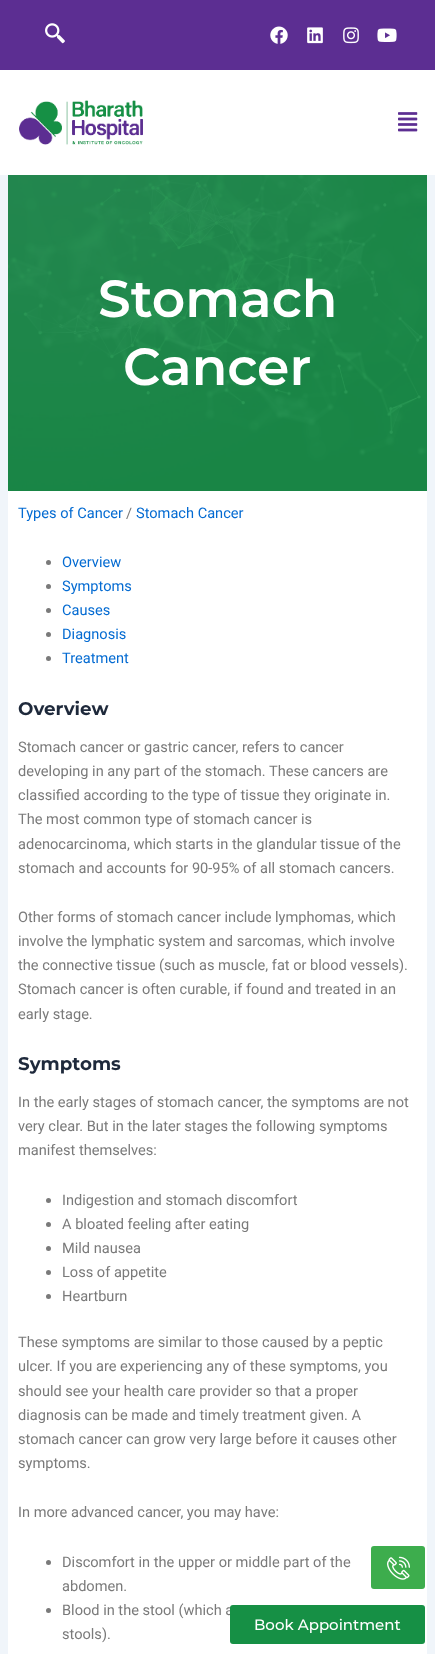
<?xml version="1.0" encoding="UTF-8"?>
<svg xmlns="http://www.w3.org/2000/svg" xmlns:xlink="http://www.w3.org/1999/xlink" width="435" height="1654">
  <rect width="100%" height="100%" fill="#f0f5fa" />
  <rect x="8" y="491" width="419" height="1163" fill="#ffffff" />
  <image x="8" y="175" width="419" height="316" xlink:href="image1.png" />
  <circle cx="48.5" cy="562.5" r="2.5" fill="#7a7a7a" />
  <circle cx="48.5" cy="586.5" r="2.5" fill="#7a7a7a" />
  <circle cx="48.5" cy="610.5" r="2.5" fill="#7a7a7a" />
  <circle cx="48.5" cy="634.5" r="2.5" fill="#7a7a7a" />
  <circle cx="48.5" cy="658.5" r="2.5" fill="#7a7a7a" />
  <circle cx="48.5" cy="1200.5" r="2.5" fill="#7a7a7a" />
  <circle cx="48.5" cy="1224.5" r="2.5" fill="#7a7a7a" />
  <circle cx="48.5" cy="1248.5" r="2.5" fill="#7a7a7a" />
  <circle cx="48.5" cy="1272.5" r="2.5" fill="#7a7a7a" />
  <circle cx="48.5" cy="1296.5" r="2.5" fill="#7a7a7a" />
  <circle cx="48.5" cy="1562.5" r="2.5" fill="#7a7a7a" />
  <circle cx="48.5" cy="1610.5" r="2.5" fill="#7a7a7a" />
  <rect width="435" height="70" fill="#5c2e92" />
  <image x="45" y="23" width="20" height="21" xlink:href="image2.png" />
  <image x="270" y="26" width="18" height="18" xlink:href="image3.png" />
  <image x="307" y="27" width="16" height="17" xlink:href="image4.png" />
  <image x="343" y="27" width="16" height="17" xlink:href="image5.png" />
  <image x="377" y="28" width="20" height="14" xlink:href="image6.png" />
  <rect y="70" width="435" height="105" fill="#ffffff" />
  <image x="19" y="100" width="124" height="45" xlink:href="image7.png" />
  <image x="398" y="112" width="20" height="20" xlink:href="image8.png" />
  <rect x="371" y="1546" width="54" height="43" rx="3" fill="#3dad4d" />
  <image x="387" y="1556" width="23" height="24" xlink:href="image9.png" />
  <text x="98" y="317" style="font-family: Montserrat; font-size: 52px; font-weight: 600; fill: #ffffff">Stomach</text>
  <text x="123" y="385" style="font-family: Montserrat; font-size: 52px; font-weight: 600; fill: #ffffff">Cancer</text>
  <text x="18" y="518" style="font-family: Roboto; font-size: 14.6px; fill: #046bd2">Types of Cancer</text>
  <text x="126" y="518" style="font-family: Roboto; font-size: 14.6px; fill: #7a7a7a">/</text>
  <text x="136" y="518" style="font-family: Roboto; font-size: 14.6px; fill: #046bd2">Stomach Cancer</text>
  <text x="62" y="567" style="font-family: Roboto; font-size: 14.6px; fill: #046bd2">Overview</text>
  <text x="62" y="591" style="font-family: Roboto; font-size: 14.6px; fill: #046bd2">Symptoms</text>
  <text x="62" y="615" style="font-family: Roboto; font-size: 14.6px; fill: #046bd2">Causes</text>
  <text x="62" y="639" style="font-family: Roboto; font-size: 14.6px; fill: #046bd2">Diagnosis</text>
  <text x="62" y="663" style="font-family: Roboto; font-size: 14.6px; fill: #046bd2">Treatment</text>
  <text x="18" y="715" style="font-family: Montserrat; font-size: 18.25px; font-weight: bold; fill: #1e293b">Overview</text>
  <text x="18" y="752" style="font-family: Roboto; font-size: 14.6px; fill: #7a7a7a">Stomach cancer or gastric cancer, refers to cancer</text>
  <text x="18" y="776" style="font-family: Roboto; font-size: 14.6px; fill: #7a7a7a">developing in any part of the stomach. These cancers are</text>
  <text x="18" y="800" style="font-family: Roboto; font-size: 14.6px; fill: #7a7a7a">classified according to the type of tissue they originate in.</text>
  <text x="18" y="824" style="font-family: Roboto; font-size: 14.6px; fill: #7a7a7a">The most common type of stomach cancer is</text>
  <text x="18" y="849" style="font-family: Roboto; font-size: 14.6px; fill: #7a7a7a">adenocarcinoma, which starts in the glandular tissue of the</text>
  <text x="18" y="873" style="font-family: Roboto; font-size: 14.6px; fill: #7a7a7a">stomach and accounts for 90-95% of all stomach cancers.</text>
  <text x="18" y="922" style="font-family: Roboto; font-size: 14.6px; fill: #7a7a7a">Other forms of stomach cancer include lymphomas, which</text>
  <text x="18" y="946" style="font-family: Roboto; font-size: 14.6px; fill: #7a7a7a">involve the lymphatic system and sarcomas, which involve</text>
  <text x="18" y="970" style="font-family: Roboto; font-size: 14.6px; fill: #7a7a7a">the connective tissue (such as muscle, fat or blood vessels).</text>
  <text x="18" y="994" style="font-family: Roboto; font-size: 14.6px; fill: #7a7a7a">Stomach cancer is often curable, if found and treated in an</text>
  <text x="18" y="1019" style="font-family: Roboto; font-size: 14.6px; fill: #7a7a7a">early stage.</text>
  <text x="18" y="1070" style="font-family: Montserrat; font-size: 18.25px; font-weight: bold; fill: #1e293b">Symptoms</text>
  <text x="18" y="1107" style="font-family: Roboto; font-size: 14.6px; fill: #7a7a7a">In the early stages of stomach cancer, the symptoms are not</text>
  <text x="18" y="1131" style="font-family: Roboto; font-size: 14.6px; fill: #7a7a7a">very clear. But in the later stages the following symptoms</text>
  <text x="18" y="1155" style="font-family: Roboto; font-size: 14.6px; fill: #7a7a7a">manifest themselves:</text>
  <text x="62" y="1205" style="font-family: Roboto; font-size: 14.6px; fill: #7a7a7a">Indigestion and stomach discomfort</text>
  <text x="62" y="1229" style="font-family: Roboto; font-size: 14.6px; fill: #7a7a7a">A bloated feeling after eating</text>
  <text x="62" y="1253" style="font-family: Roboto; font-size: 14.6px; fill: #7a7a7a">Mild nausea</text>
  <text x="62" y="1277" style="font-family: Roboto; font-size: 14.6px; fill: #7a7a7a">Loss of appetite</text>
  <text x="62" y="1301" style="font-family: Roboto; font-size: 14.6px; fill: #7a7a7a">Heartburn</text>
  <text x="18" y="1347" style="font-family: Roboto; font-size: 14.6px; fill: #7a7a7a">These symptoms are similar to those caused by a peptic</text>
  <text x="18" y="1371" style="font-family: Roboto; font-size: 14.6px; fill: #7a7a7a">ulcer. If you are experiencing any of these symptoms, you</text>
  <text x="18" y="1396" style="font-family: Roboto; font-size: 14.6px; fill: #7a7a7a">should see your health care provider so that a proper</text>
  <text x="18" y="1420" style="font-family: Roboto; font-size: 14.6px; fill: #7a7a7a">diagnosis can be made and timely treatment given. A</text>
  <text x="18" y="1444" style="font-family: Roboto; font-size: 14.6px; fill: #7a7a7a">stomach cancer can grow very large before it causes other</text>
  <text x="18" y="1468" style="font-family: Roboto; font-size: 14.6px; fill: #7a7a7a">symptoms.</text>
  <text x="18" y="1517" style="font-family: Roboto; font-size: 14.6px; fill: #7a7a7a">In more advanced cancer, you may have:</text>
  <text x="62" y="1567" style="font-family: Roboto; font-size: 14.6px; fill: #7a7a7a">Discomfort in the upper or middle part of the</text>
  <text x="62" y="1591" style="font-family: Roboto; font-size: 14.6px; fill: #7a7a7a">abdomen.</text>
  <text x="62" y="1615" style="font-family: Roboto; font-size: 14.6px; fill: #7a7a7a">Blood in the stool (which a</text>
  <text x="62" y="1639" style="font-family: Roboto; font-size: 14.6px; fill: #7a7a7a">stools).</text>
  <rect x="230" y="1605" width="195" height="39" rx="3" fill="#169045" />
  <text x="254" y="1630" style="font-family: Montserrat; font-size: 15px; font-weight: 500; fill: #ffffff">Book Appointment</text>
</svg>
